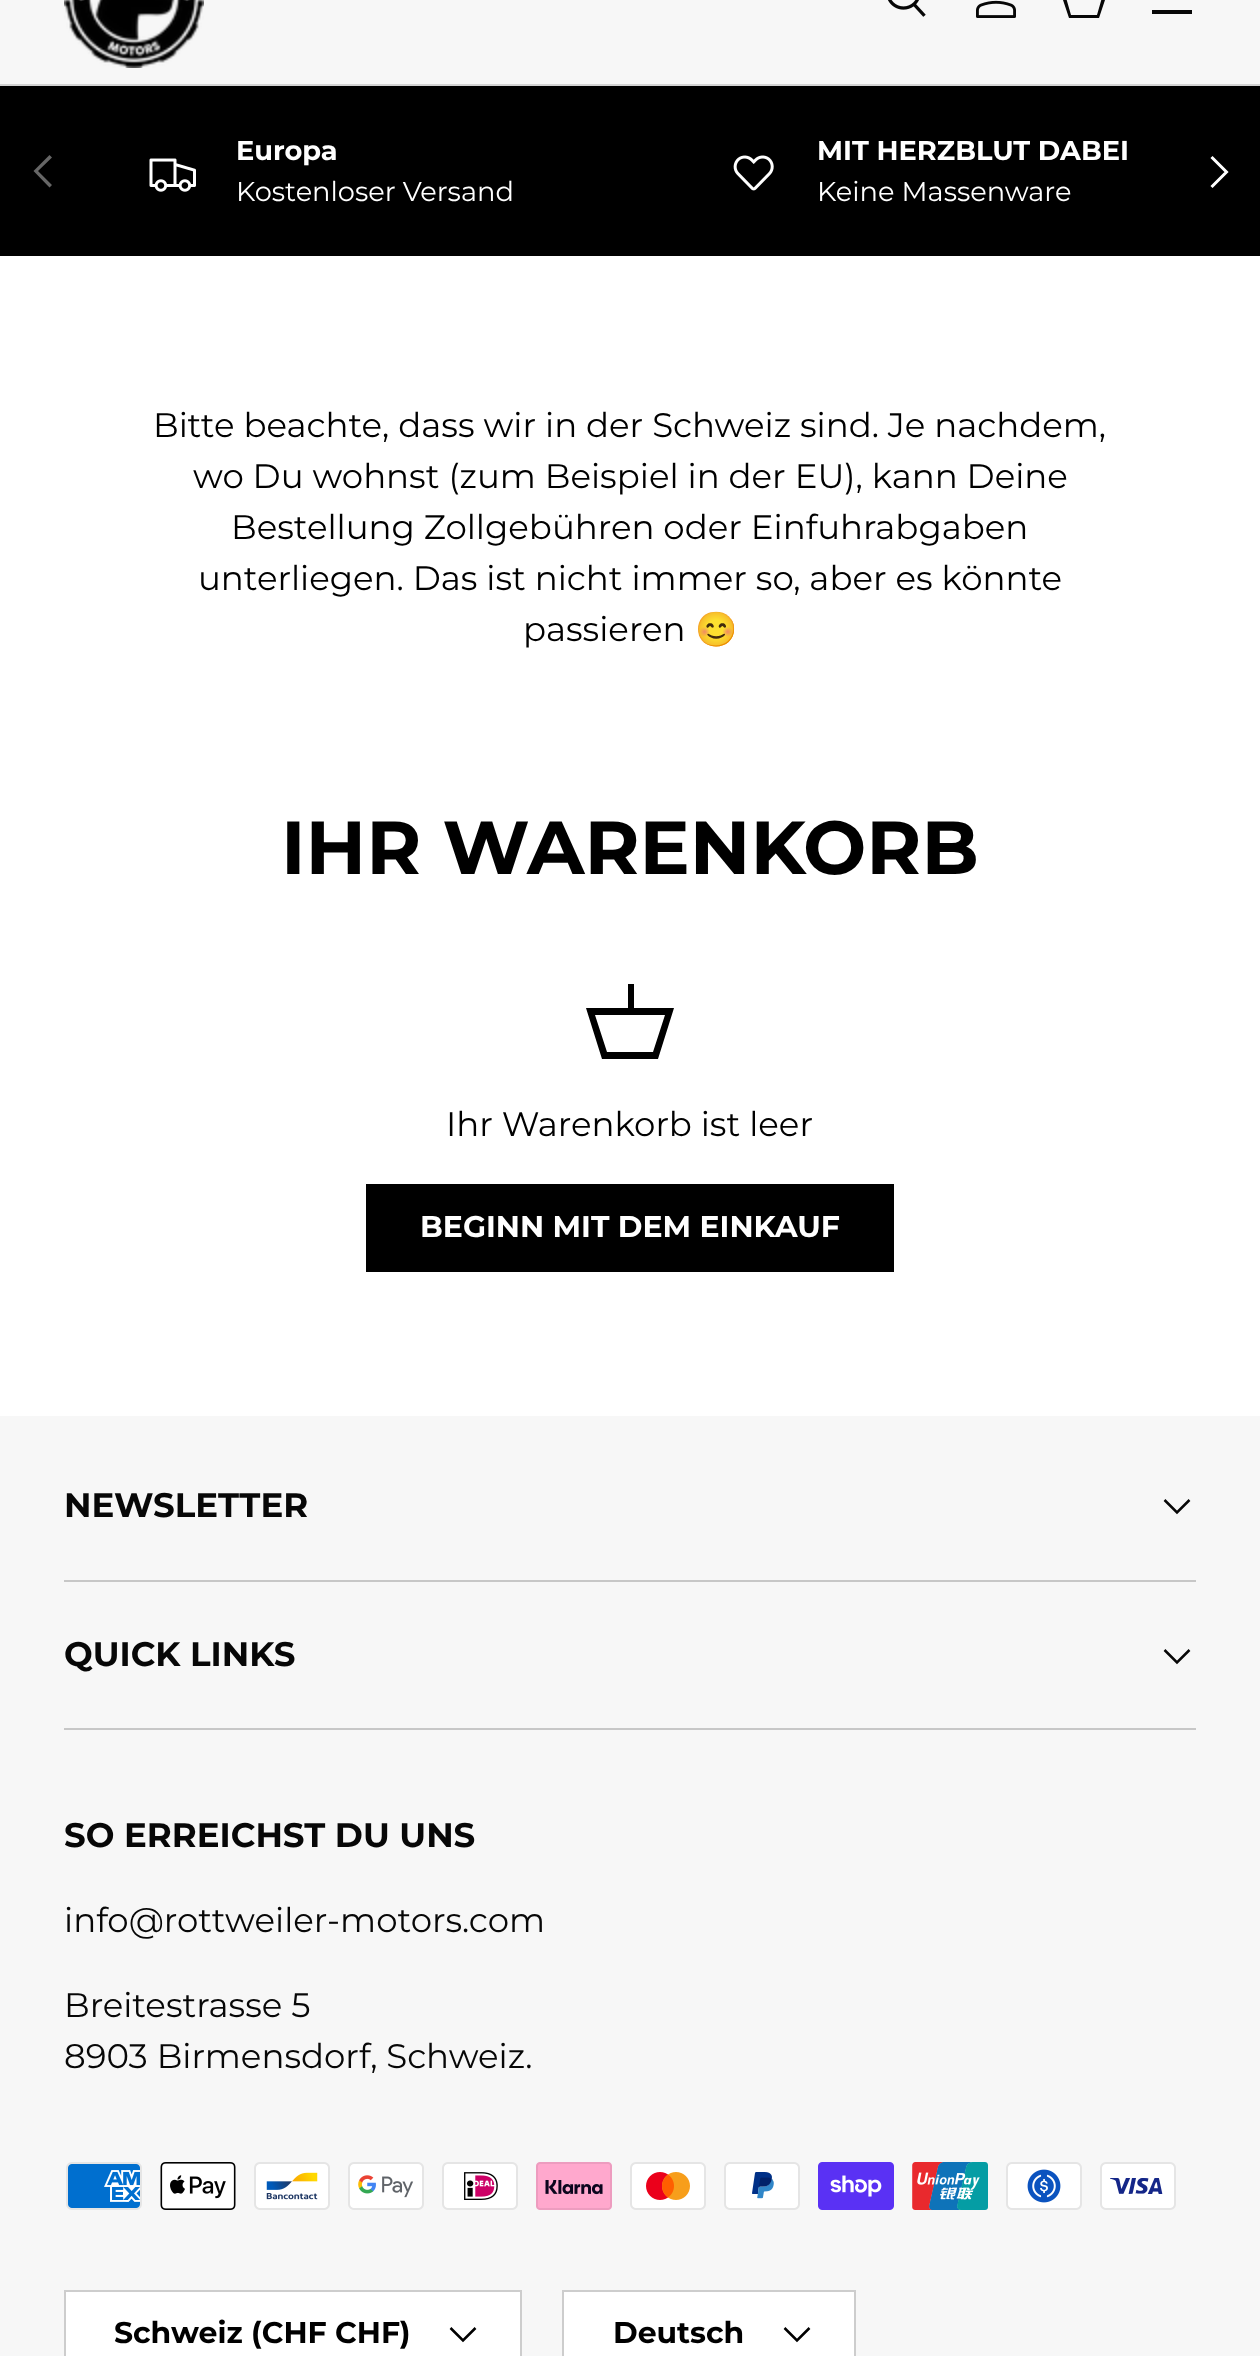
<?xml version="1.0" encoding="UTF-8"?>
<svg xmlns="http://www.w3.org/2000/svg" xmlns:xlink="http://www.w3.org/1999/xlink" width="1260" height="2356">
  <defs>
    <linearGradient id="g1" gradientUnits="userSpaceOnUse" x1="-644" y1="1041" x2="856" y2="1415"><stop offset="0.6" stop-color="#2e2e2e" /><stop offset="0.6" stop-color="#000000" /><stop offset="1" stop-color="#000000" /></linearGradient>
  </defs>
  <rect width="100%" height="100%" fill="#ffffff" />
  <rect width="1260" height="84" fill="#f7f7f7" />
  <rect y="84" width="1260" height="2" fill="#d3d3d3" />
  <image x="64" y="0" width="140" height="68" xlink:href="image1.png" />
  <image x="888" y="0" width="38" height="17" xlink:href="image2.png" />
  <image x="976" y="0" width="40" height="18" xlink:href="image3.png" />
  <path d="M 1083 -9 v -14 h 3 v 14 h 22 l -9 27 h -30 l -9 -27 z m -18 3 l 6 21 h 26 l 6 -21 z" fill="#070707" />
  <rect x="1152" y="10" width="40" height="4" fill="#070707" />
  <rect y="86" width="1260" height="170" fill="#000000" />
  <image x="149" y="158" width="47" height="34" xlink:href="image4.png" />
  <image x="733" y="155" width="41" height="36" xlink:href="image5.png" />
  <path d="M 33.5 171 l 16 -16 l 2.5 2.5 l -14 13.5 l 14 14 l -2.5 2.5 z" fill="#666666" />
  <path d="M 1211.5 157 l 15 15 l -15 15" fill="none" stroke="#ffffff" stroke-width="3" />
  <path d="M 628 1008 v -24 h 6 v 24 h 40 l -16 51 h -56 l -16 -51 z m -33 7 l 12 37 h 46 l 12 -37 z" fill="#000000" />
  <rect x="368" y="1186" width="524" height="84" fill="url(#g1)" />
  <rect x="367" y="1185" width="526" height="86" fill="none" stroke="#000000" stroke-width="2" />
  <rect y="1416" width="1260" height="940" fill="#f7f7f7" />
  <rect x="64" y="1580" width="1132" height="2" fill="#c7c7c7" />
  <path d="M 1189.5 1500 l -12.5 12.5 l -12.5 -12.5" fill="none" stroke="#070707" stroke-width="2.5" />
  <rect x="64" y="1728" width="1132" height="2" fill="#c7c7c7" />
  <path d="M 1189.5 1650 l -12.5 12.5 l -12.5 -12.5" fill="none" stroke="#070707" stroke-width="2.5" />
  <image x="66" y="2162" width="76" height="48" xlink:href="image6.png" />
  <image x="160" y="2162" width="76" height="48" xlink:href="image7.png" />
  <image x="254" y="2162" width="76" height="48" xlink:href="image8.png" />
  <image x="348" y="2162" width="76" height="48" xlink:href="image9.png" />
  <image x="442" y="2162" width="76" height="48" xlink:href="image10.png" />
  <image x="536" y="2162" width="76" height="48" xlink:href="image11.png" />
  <image x="630" y="2162" width="76" height="48" xlink:href="image12.png" />
  <image x="724" y="2162" width="76" height="48" xlink:href="image13.png" />
  <image x="818" y="2162" width="76" height="48" xlink:href="image14.png" />
  <image x="912" y="2162" width="76" height="48" xlink:href="image15.png" />
  <image x="1006" y="2162" width="76" height="48" xlink:href="image16.png" />
  <image x="1100" y="2162" width="76" height="48" xlink:href="image17.png" />
  <rect x="65" y="2291" width="456" height="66" fill="#ffffff" stroke="#cdcdcd" stroke-width="2" />
  <path d="M 475.5 2328 l -12.5 12.5 l -12.5 -12.5" fill="none" stroke="#000000" stroke-width="2.5" />
  <rect x="563" y="2291" width="292" height="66" fill="#ffffff" stroke="#cdcdcd" stroke-width="2" />
  <path d="M 809.5 2328 l -12.5 12.5 l -12.5 -12.5" fill="none" stroke="#000000" stroke-width="2.5" />
  <text x="236" y="160" style="font-family: Montserrat; font-size: 27.25px; font-weight: bold; fill: #ffffff">Europa</text>
  <text x="236" y="201" style="font-family: Montserrat; font-size: 27.25px; fill: #ffffff">Kostenloser Versand</text>
  <text x="817" y="160" style="font-family: Montserrat; font-size: 27.25px; font-weight: bold; fill: #ffffff">MIT HERZBLUT DABEI</text>
  <text x="817" y="201" style="font-family: Montserrat; font-size: 27.25px; fill: #ffffff">Keine Massenware</text>
  <text x="153" y="437" style="font-family: Montserrat; font-size: 34px; fill: #000000">Bitte beachte, dass wir in der Schweiz sind. Je nachdem,</text>
  <text x="193" y="488" style="font-family: Montserrat; font-size: 34px; fill: #000000">wo Du wohnst (zum Beispiel in der EU), kann Deine</text>
  <text x="231" y="539" style="font-family: Montserrat; font-size: 34px; fill: #000000">Bestellung Zollgebühren oder Einfuhrabgaben</text>
  <text x="198" y="590" style="font-family: Montserrat; font-size: 34px; fill: #000000">unterliegen. Das ist nicht immer so, aber es könnte</text>
  <text x="523" y="641" style="font-family: Montserrat; font-size: 34px; fill: #000000">passieren</text>
  <text x="695" y="641" style="font-family: Noto Color Emoji; font-size: 34px; fill: #000000">😊</text>
  <text x="281" y="874" style="font-family: Montserrat; font-size: 75px; font-weight: bold; fill: #000000">IHR WARENKORB</text>
  <text x="446" y="1136" style="font-family: Montserrat; font-size: 34px; fill: #000000">Ihr Warenkorb ist leer</text>
  <text x="420" y="1237" style="font-family: Montserrat; font-size: 29.9px; font-weight: bold; fill: #ffffff">BEGINN MIT DEM EINKAUF</text>
  <text x="64" y="1517" style="font-family: Montserrat; font-size: 34px; font-weight: bold; fill: #070707">NEWSLETTER</text>
  <text x="64" y="1666" style="font-family: Montserrat; font-size: 34px; font-weight: bold; fill: #070707">QUICK LINKS</text>
  <text x="64" y="1847" style="font-family: Montserrat; font-size: 34px; font-weight: bold; fill: #070707">SO ERREICHST DU UNS</text>
  <text x="64" y="1932" style="font-family: Montserrat; font-size: 34px; fill: #070707">info@rottweiler-motors.com</text>
  <text x="64" y="2017" style="font-family: Montserrat; font-size: 34px; fill: #070707">Breitestrasse 5</text>
  <text x="64" y="2068" style="font-family: Montserrat; font-size: 34px; fill: #070707">8903 Birmensdorf, Schweiz.</text>
  <text x="114" y="2343" style="font-family: Montserrat; font-size: 29.9px; font-weight: bold; fill: #000000">Schweiz (CHF CHF)</text>
  <text x="613" y="2343" style="font-family: Montserrat; font-size: 29.9px; font-weight: bold; fill: #000000">Deutsch</text>
</svg>
